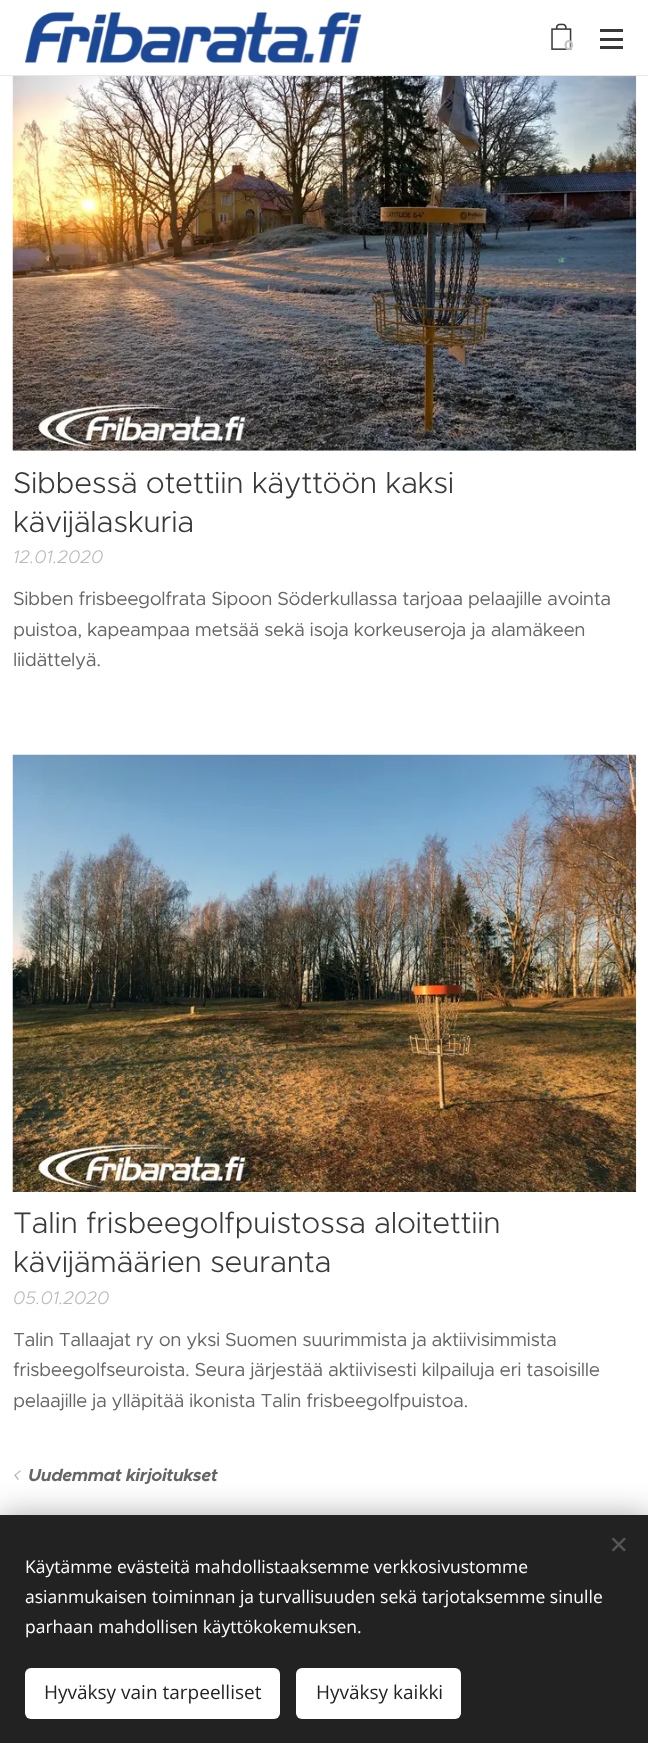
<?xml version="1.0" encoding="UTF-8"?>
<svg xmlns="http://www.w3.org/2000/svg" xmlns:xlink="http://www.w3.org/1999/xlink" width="648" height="1743">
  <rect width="100%" height="100%" fill="#ffffff" />
  <rect y="75" width="648" height="1" fill="#e8e8e8" />
  <image x="25" y="12" width="337" height="51" xlink:href="image1.png" />
  <image x="551" y="23" width="21" height="27" xlink:href="image2.png" />
  <rect x="600" y="38" width="23" height="3" fill="#393939" />
  <rect x="600" y="29" width="23" height="3" fill="#393939" />
  <rect x="600" y="46" width="23" height="3" fill="#393939" />
  <image x="12" y="76" width="625" height="375" xlink:href="image3.png" />
  <image x="12" y="754" width="625" height="438" xlink:href="image4.png" />
  <image x="14" y="1470" width="7" height="10" xlink:href="image5.png" />
  <rect y="1515" width="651" height="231" fill="#000000" fill-opacity="0.33" filter="blur(15.5px)" />
  <rect y="1515" width="648" height="228" fill="#222222" />
  <path d="M 611.5 1550 l 12.5 -12.5 l 2 1.5 l -12.5 12.5 z" fill="#555555" />
  <path d="M 613.5 1537.5 l 12.5 12.5 l -2 1.5 l -12.5 -12.5 z" fill="#555555" />
  <rect x="25" y="1668" width="255" height="51" rx="6" fill="#ffffff" />
  <rect x="296" y="1668" width="165" height="51" rx="6" fill="#ffffff" />
  <text x="564" y="50" style="font-family: Montserrat; font-size: 14px; font-weight: bold; fill: #c5c5c5">0</text>
  <text x="13" y="493" style="font-family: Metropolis; font-size: 30px; font-weight: 300; letter-spacing: -0.3px; fill: #393939">Sibbessä otettiin käyttöön kaksi</text>
  <text x="13" y="532" style="font-family: Metropolis; font-size: 30px; font-weight: 300; letter-spacing: -0.3px; fill: #393939">kävijälaskuria</text>
  <text x="13" y="563" style="font-family: Metropolis; font-size: 18.25px; font-weight: 300; font-style: italic; fill: #bababa">12.01.2020</text>
  <text x="13" y="605" style="font-family: Metropolis; font-size: 19px; letter-spacing: -0.4px; fill: #666666">Sibben frisbeegolfrata Sipoon Söderkullassa tarjoaa pelaajille avointa</text>
  <text x="13" y="636" style="font-family: Metropolis; font-size: 19px; letter-spacing: -0.4px; fill: #666666">puistoa, kapeampaa metsää sekä isoja korkeuseroja ja alamäkeen</text>
  <text x="13" y="666" style="font-family: Metropolis; font-size: 19px; letter-spacing: -0.4px; fill: #666666">liidättelyä.</text>
  <text x="13" y="1233" style="font-family: Metropolis; font-size: 30px; font-weight: 300; letter-spacing: -0.3px; fill: #393939">Talin frisbeegolfpuistossa aloitettiin</text>
  <text x="13" y="1272" style="font-family: Metropolis; font-size: 30px; font-weight: 300; letter-spacing: -0.3px; fill: #393939">kävijämäärien seuranta</text>
  <text x="13" y="1304" style="font-family: Metropolis; font-size: 18.25px; font-weight: 300; font-style: italic; fill: #bababa">05.01.2020</text>
  <text x="13" y="1346" style="font-family: Metropolis; font-size: 19px; letter-spacing: -0.4px; fill: #666666">Talin Tallaajat ry on yksi Suomen suurimmista ja aktiivisimmista</text>
  <text x="13" y="1376" style="font-family: Metropolis; font-size: 19px; letter-spacing: -0.4px; fill: #666666">frisbeegolfseuroista. Seura järjestää aktiivisesti kilpailuja eri tasoisille</text>
  <text x="13" y="1407" style="font-family: Metropolis; font-size: 19px; letter-spacing: -0.4px; fill: #666666">pelaajille ja ylläpitää ikonista Talin frisbeegolfpuistoa.</text>
  <text x="28" y="1481" style="font-family: Metropolis; font-size: 17.5px; font-weight: bold; font-style: italic; letter-spacing: -0.4px; fill: #666666">Uudemmat kirjoitukset</text>
  <text x="25" y="1573" style="font-family: Open Sans; font-size: 17.5px; fill: #ffffff">Käytämme evästeitä mahdollistaaksemme verkkosivustomme</text>
  <text x="25" y="1603" style="font-family: Open Sans; font-size: 17.5px; fill: #ffffff">asianmukaisen toiminnan ja turvallisuuden sekä tarjotaksemme sinulle</text>
  <text x="25" y="1633" style="font-family: Open Sans; font-size: 17.5px; fill: #ffffff">parhaan mahdollisen käyttökokemuksen.</text>
  <text x="44" y="1699" style="font-family: Open Sans; font-size: 19px; fill: #222222">Hyväksy vain tarpeelliset</text>
  <text x="316" y="1699" style="font-family: Open Sans; font-size: 19px; fill: #222222">Hyväksy kaikki</text>
</svg>
